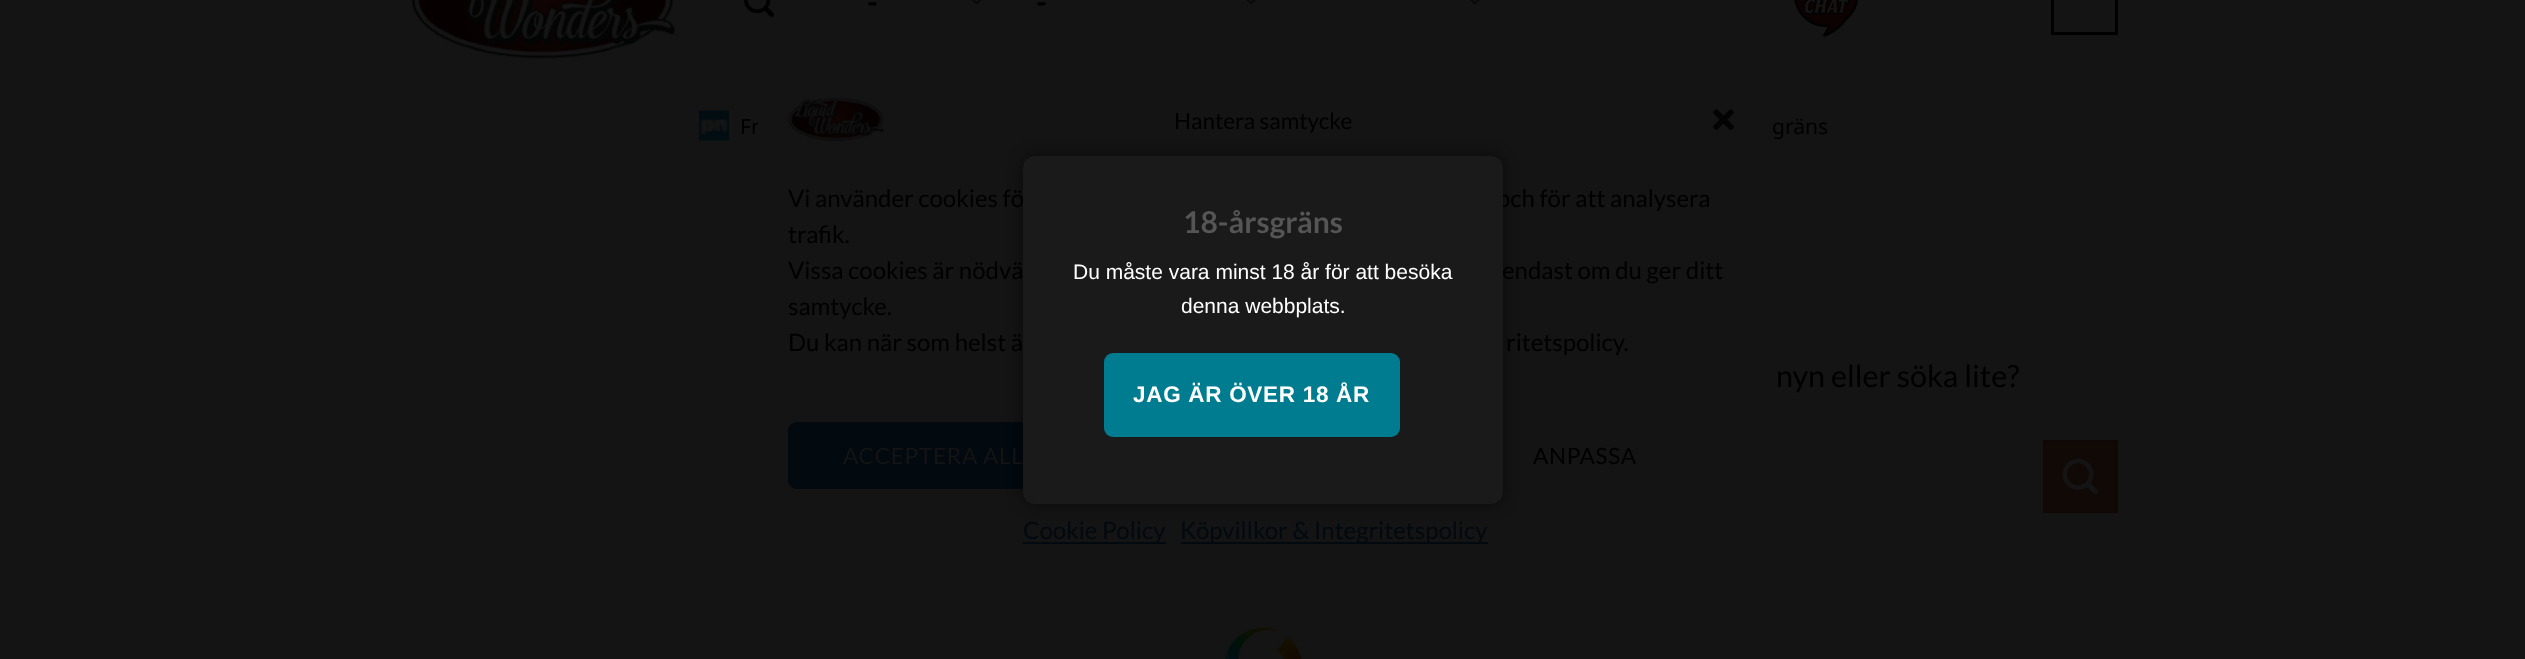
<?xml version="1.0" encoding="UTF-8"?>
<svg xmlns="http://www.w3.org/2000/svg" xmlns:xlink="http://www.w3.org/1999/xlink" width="2525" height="659">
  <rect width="100%" height="100%" fill="#141414" />
  <image x="411" y="0" width="265" height="59" xlink:href="image1.png" />
  <image x="744" y="0" width="30" height="17" xlink:href="image2.png" />
  <image x="972" y="0" width="10" height="5" xlink:href="image3.png" />
  <image x="1246" y="0" width="10" height="5" xlink:href="image4.png" />
  <image x="1470" y="0" width="10" height="5" xlink:href="image3.png" />
  <image x="1794" y="0" width="64" height="37" xlink:href="image5.png" />
  <rect x="2052.5" y="-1.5" width="64" height="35" fill="none" stroke="#010101" stroke-width="3" />
  <image x="699" y="110" width="30" height="31" xlink:href="image6.png" />
  <rect x="2044" y="441" width="73" height="71" fill="#110906" stroke="#100806" stroke-width="2" />
  <image x="2062" y="458" width="36" height="37" xlink:href="image7.png" />
  <image x="1224" y="628" width="78" height="31" xlink:href="image8.png" />
  <text x="867" y="13" style="font-family: Lato; font-size: 30.5px; font-weight: bold; letter-spacing: 1px; fill: #000000">-</text>
  <text x="1036" y="13" style="font-family: Lato; font-size: 30.5px; font-weight: bold; letter-spacing: 1px; fill: #000000">-</text>
  <text x="740" y="134" style="font-family: Noto Sans; font-size: 21px; fill: #000000">Fr</text>
  <text x="1772" y="134" style="font-family: Noto Sans; font-size: 21px; fill: #000000">gräns</text>
  <text x="1776" y="387" style="font-family: Lato; font-size: 30.5px; fill: #000000">nyn eller söka lite?</text>
  <rect x="758" y="68" width="1011" height="525" rx="9" fill="#141414" />
  <image x="788" y="97" width="96" height="45" xlink:href="image9.png" />
  <text x="1174" y="129" style="font-family: Lato; font-size: 22.5px; fill: #000000">Hantera samtycke</text>
  <image x="1713" y="109" width="21" height="21" xlink:href="image10.png" />
  <text x="788" y="207" style="font-family: Lato; font-size: 24px; fill: #000000">Vi använder cookies fö</text>
  <text x="1497" y="207" style="font-family: Lato; font-size: 24px; fill: #000000">och för att analysera</text>
  <text x="788" y="243" style="font-family: Lato; font-size: 24px; fill: #000000">trafik.</text>
  <text x="788" y="279" style="font-family: Lato; font-size: 24px; fill: #000000">Vissa cookies är nödvä</text>
  <text x="1502" y="279" style="font-family: Lato; font-size: 24px; fill: #000000">endast om du ger ditt</text>
  <text x="788" y="315" style="font-family: Lato; font-size: 24px; fill: #000000">samtycke.</text>
  <text x="788" y="351" style="font-family: Lato; font-size: 24px; fill: #000000">Du kan när som helst ä</text>
  <text x="1506" y="351" style="font-family: Lato; font-size: 24px; fill: #000000">ritetspolicy.</text>
  <rect x="789" y="423" width="305" height="65" rx="8" fill="#02090f" stroke="#02090f" stroke-width="2" />
  <text x="843" y="464" style="font-family: Lato; font-size: 22.5px; letter-spacing: 0.7px; fill: #141414">ACCEPTERA ALL</text>
  <text x="1533" y="464" style="font-family: Lato; font-size: 22.5px; letter-spacing: 0.7px; fill: #000000">ANPASSA</text>
  <rect x="1023" y="542" width="143" height="2" fill="#02090f" />
  <text x="1023" y="539" style="font-family: Lato; font-size: 24px; fill: #02090f">Cookie Policy</text>
  <rect x="1181" y="542" width="307" height="2" fill="#02090f" />
  <text x="1180" y="539" style="font-family: Lato; font-size: 24px; fill: #02090f">Köpvillkor &amp; Integritetspolicy</text>
  <rect x="1023" y="156" width="480" height="348" rx="12" fill="#000000" fill-opacity="0.5" filter="blur(7.5px)" />
  <rect x="1023" y="156" width="480" height="348" rx="12" fill="#1a1a1a" />
  <text x="1183" y="233" style="font-family: Lato; font-size: 30px; font-weight: bold; fill: #555555">18-årsgräns</text>
  <text x="1073" y="279" style="font-family: Liberation Sans; font-size: 21px; fill: #ffffff">Du måste vara minst 18 år för att besöka</text>
  <text x="1181" y="313" style="font-family: Liberation Sans; font-size: 21px; fill: #ffffff">denna webbplats.</text>
  <rect x="1104" y="353" width="296" height="84" rx="9" fill="#007c91" />
  <text x="1133" y="402" style="font-family: Liberation Sans; font-size: 22.5px; font-weight: bold; letter-spacing: 0.7px; fill: #ffffff">JAG ÄR ÖVER 18 ÅR</text>
</svg>
